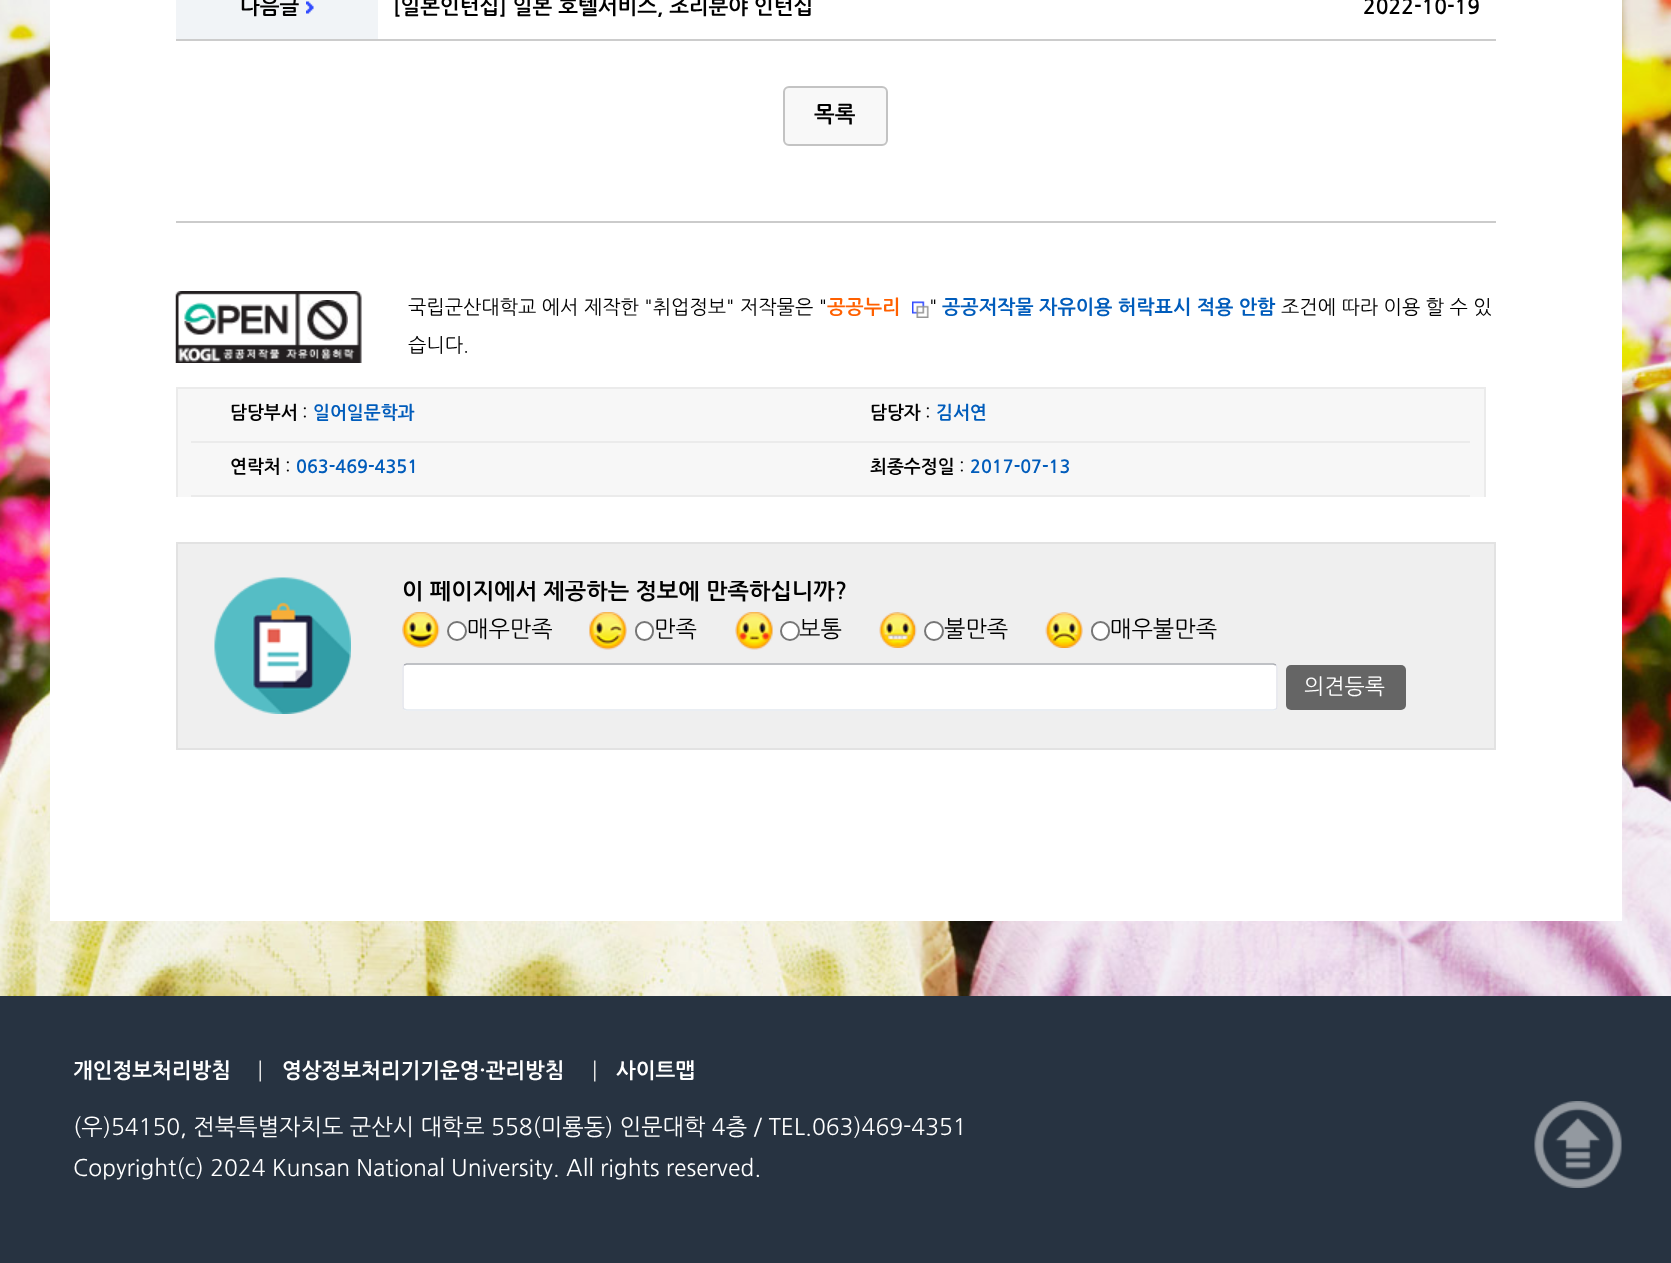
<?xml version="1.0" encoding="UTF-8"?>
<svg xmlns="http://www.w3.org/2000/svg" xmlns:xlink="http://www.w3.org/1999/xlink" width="1671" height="1263">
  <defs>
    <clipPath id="clip1"><rect x="402" y="581" width="1092" height="72" /></clipPath>
  </defs>
  <rect width="100%" height="100%" fill="#ffffff" />
  <image x="0" y="0" width="1671" height="996" xlink:href="image1.png" />
  <rect x="50" width="1572" height="921" fill="#ffffff" />
  <rect x="176" width="202" height="39" fill="#f1f4f7" />
  <image x="306" y="1" width="8" height="13" xlink:href="image2.png" />
  <rect x="176" y="39" width="1320" height="2" fill="#cccccc" />
  <rect x="784" y="87" width="103" height="58" rx="5" fill="#f8f8f8" stroke="#c3c3c3" stroke-width="2" />
  <rect x="176" y="221" width="1320" height="2" fill="#cbcbcb" />
  <image x="175" y="291" width="187" height="72" xlink:href="image3.png" />
  <image x="307" y="300" width="41" height="41" xlink:href="image4.png" />
  <image x="912" y="301" width="17" height="17" xlink:href="image5.png" />
  <rect x="178" y="389" width="1306" height="108" fill="#f7f7f7" />
  <rect x="176" y="387" width="1309" height="2" fill="#ebebeb" />
  <rect x="1484" y="387" width="2" height="110" fill="#ebebeb" />
  <rect x="176" y="387" width="2" height="110" fill="#ebebeb" />
  <rect x="191" y="441" width="1279" height="2" fill="#ebebeb" />
  <rect x="191" y="495" width="1279" height="2" fill="#ebebeb" />
  <rect x="178" y="544" width="1316" height="204" fill="#efefef" />
  <image x="214" y="577" width="137" height="137" xlink:href="image6.png" />
  <rect x="177" y="543" width="1318" height="206" fill="none" stroke="#e2e2e2" stroke-width="2" />
  <image x="402" y="612" width="38" height="36" xlink:href="image7.png" />
  <circle cx="457" cy="631" r="9" fill="#ffffff" stroke="#767676" stroke-width="2" />
  <image x="589" y="612" width="38" height="38" xlink:href="image8.png" />
  <rect x="636" y="622" width="17" height="18" rx="8.5" fill="#ffffff" stroke="#767676" stroke-width="2" />
  <image x="735" y="612" width="38" height="38" xlink:href="image9.png" />
  <circle cx="790" cy="631" r="9" fill="#ffffff" stroke="#767676" stroke-width="2" />
  <image x="879" y="612" width="38" height="36" xlink:href="image10.png" />
  <circle cx="934" cy="631" r="9" fill="#ffffff" stroke="#767676" stroke-width="2" />
  <image x="1045" y="612" width="38" height="36" xlink:href="image11.png" />
  <rect x="1092" y="622" width="17" height="18" rx="8.5" fill="#ffffff" stroke="#767676" stroke-width="2" />
  <rect x="402" y="663" width="876" height="48" rx="5" fill="#ffffff" />
  <path d="M 404 665 l 2.5 -1 h 867 l 2.5 1" fill="none" stroke="#abadb3" stroke-width="1.5" />
  <path d="M 1276 665 c 1 0.5 1 1.5 1 2.5 v 39 c 0 1 0 2 -1 2.5" fill="none" stroke="#e2e3ea" stroke-width="1.5" />
  <path d="M 1276 709 l -2.5 1 h -867 l -2.5 -1" fill="none" stroke="#e3e9ef" stroke-width="1.5" />
  <path d="M 404 709 c -1 -0.5 -1 -1.5 -1 -2.5 v -39 c 0 -1 0 -2 1 -2.5" fill="none" stroke="#e2e3ea" stroke-width="1.5" />
  <rect x="1286" y="665" width="120" height="45" rx="5" fill="#656565" />
  <rect y="996" width="1671" height="267" fill="#273341" />
  <image x="259" y="1060" width="2" height="22" xlink:href="image12.png" />
  <image x="594" y="1060" width="2" height="22" xlink:href="image13.png" />
  <image x="1534" y="1101" width="88" height="87" xlink:href="image14.png" />
  <text x="240" y="14" style="font-family: NanumGothic; font-size: 21px; font-weight: bold; fill: #000000">다음글</text>
  <text x="393" y="14" style="font-family: NanumGothic; font-size: 21px; font-weight: bold; fill: #000000">[일본인턴십] 일본 호텔서비스, 조리분야 인턴십</text>
  <text x="1363" y="14" style="font-family: NanumGothic; font-size: 21px; font-weight: bold; fill: #000000">2022-10-19</text>
  <text x="814" y="122" style="font-family: NanumGothic; font-size: 22px; font-weight: bold; fill: #000000">목록</text>
  <text x="408" y="314" style="font-family: NanumGothic; font-size: 19.5px; fill: #000000">국립군산대학교 에서 제작한 "취업정보" 저작물은 "</text>
  <text x="827" y="314" style="font-family: NanumGothic; font-size: 19.5px; font-weight: bold; fill: #ff6000">공공누리</text>
  <text x="929" y="314" style="font-family: NanumGothic; font-size: 19.5px; fill: #000000">"</text>
  <text x="942" y="314" style="font-family: NanumGothic; font-size: 19.5px; font-weight: bold; fill: #005cbb">공공저작물 자유이용 허락표시 적용 안함</text>
  <text x="1281" y="314" style="font-family: NanumGothic; font-size: 19.5px; fill: #000000">조건에 따라 이용 할 수 있</text>
  <text x="408" y="352" style="font-family: NanumGothic; font-size: 19.5px; fill: #000000">습니다.</text>
  <text x="230" y="419" style="font-family: NanumGothic; font-size: 18px; font-weight: bold; fill: #000000">담당부서</text>
  <text x="302" y="419" style="font-family: NanumGothic; font-size: 18px; fill: #000000">:</text>
  <text x="313" y="419" style="font-family: NanumGothic; font-size: 18px; font-weight: bold; fill: #005cbb">일어일문학과</text>
  <text x="870" y="419" style="font-family: NanumGothic; font-size: 18px; font-weight: bold; fill: #000000">담당자</text>
  <text x="925" y="419" style="font-family: NanumGothic; font-size: 18px; fill: #000000">:</text>
  <text x="936" y="419" style="font-family: NanumGothic; font-size: 18px; font-weight: bold; fill: #005cbb">김서연</text>
  <text x="230" y="473" style="font-family: NanumGothic; font-size: 18px; font-weight: bold; fill: #000000">연락처</text>
  <text x="285" y="473" style="font-family: NanumGothic; font-size: 18px; fill: #000000">:</text>
  <text x="296" y="473" style="font-family: NanumGothic; font-size: 18px; font-weight: bold; fill: #005cbb">063-469-4351</text>
  <text x="870" y="473" style="font-family: NanumGothic; font-size: 18px; font-weight: bold; fill: #000000">최종수정일</text>
  <text x="959" y="473" style="font-family: NanumGothic; font-size: 18px; fill: #000000">:</text>
  <text x="970" y="473" style="font-family: NanumGothic; font-size: 18px; font-weight: bold; fill: #005cbb">2017-07-13</text>
  <g clip-path="url(#clip1)">
    <text x="402" y="599" style="font-family: NanumGothic; font-size: 22.8px; font-weight: bold; fill: #000000">이 페이지에서 제공하는 정보에 만족하십니까?</text>
  </g>
  <text x="467" y="637" style="font-family: NanumGothic; font-size: 22.8px; fill: #000000">매우만족</text>
  <text x="654" y="637" style="font-family: NanumGothic; font-size: 22.8px; fill: #000000">만족</text>
  <text x="799" y="637" style="font-family: NanumGothic; font-size: 22.8px; fill: #000000">보통</text>
  <text x="944" y="637" style="font-family: NanumGothic; font-size: 22.8px; fill: #000000">불만족</text>
  <text x="1110" y="637" style="font-family: NanumGothic; font-size: 22.8px; fill: #000000">매우불만족</text>
  <text x="1304" y="694" style="font-family: NanumGothic; font-size: 21.5px; fill: #ffffff">의견등록</text>
  <text x="73" y="1078" style="font-family: NanumGothic; font-size: 21px; font-weight: bold; fill: #ffffff">개인정보처리방침</text>
  <text x="282" y="1078" style="font-family: NanumGothic; font-size: 21px; font-weight: bold; fill: #ffffff">영상정보처리기기운영·관리방침</text>
  <text x="616" y="1078" style="font-family: NanumGothic; font-size: 21px; font-weight: bold; fill: #ffffff">사이트맵</text>
  <text x="73" y="1135" style="font-family: NanumGothic; font-size: 22.8px; fill: #ffffff">(우)54150, 전북특별자치도 군산시 대학로 558(미룡동) 인문대학 4층 / TEL.063)469-4351</text>
  <text x="73" y="1176" style="font-family: NanumGothic; font-size: 22.8px; fill: #ffffff">Copyright(c) 2024 Kunsan National University. All rights reserved.</text>
</svg>
